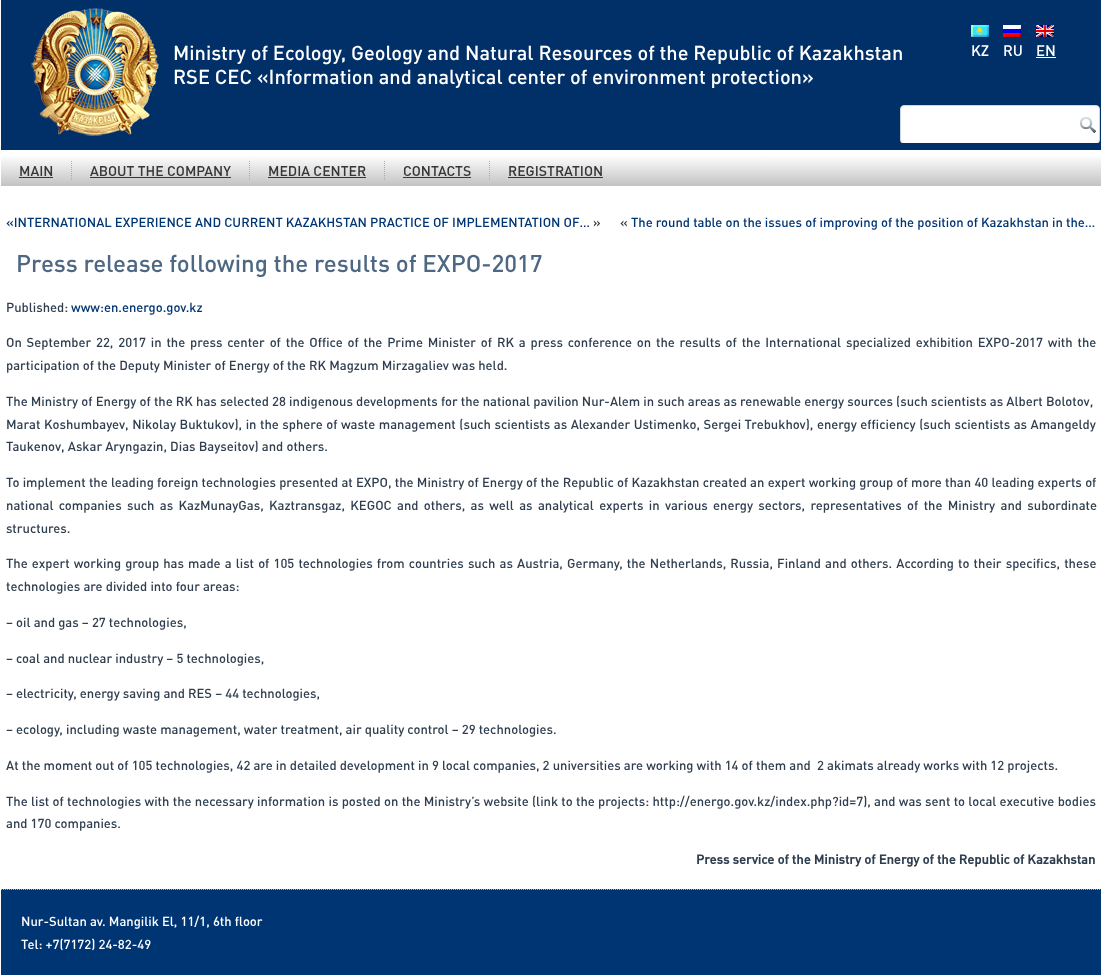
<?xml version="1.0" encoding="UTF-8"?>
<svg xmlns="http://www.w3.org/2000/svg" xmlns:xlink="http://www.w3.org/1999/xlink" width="1101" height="977">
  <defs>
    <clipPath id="clip1"><rect x="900" y="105" width="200" height="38" /></clipPath>
    <clipPath id="clip2"><rect x="900" y="105" width="200" height="38" /></clipPath>
    <linearGradient id="g1" gradientUnits="userSpaceOnUse" x1="551" y1="155" x2="551" y2="186"><stop offset="0" stop-color="#ffffff" /><stop offset="1" stop-color="#c2c2c2" /></linearGradient>
  </defs>
  <rect width="100%" height="100%" fill="#ffffff" />
  <rect x="1" width="1100" height="150" fill="#013068" />
  <image x="31" y="8" width="128" height="128" xlink:href="image1.png" />
  <image x="971" y="25" width="18" height="12" xlink:href="image2.png" />
  <image x="1003" y="25" width="18" height="12" xlink:href="image3.png" />
  <image x="1036" y="25" width="18" height="12" xlink:href="image4.png" />
  <rect x="1036" y="57" width="20" height="1" fill="#ffffff" />
  <g clip-path="url(#clip1)">
    <rect x="899" y="104" width="202" height="41" rx="5" fill="#000000" fill-opacity="0.35" filter="blur(1px)" />
  </g>
  <g clip-path="url(#clip2)">
    <rect x="900.5" y="105.5" width="199" height="38" rx="3.5" fill="#ffffff" stroke="#ccd6e0" />
  </g>
  <image x="1080" y="117" width="16" height="16" xlink:href="image5.png" />
  <rect x="1" y="156" width="1100" height="30" fill="url(#g1)" />
  <rect x="19" y="177" width="34" height="1" fill="#363636" />
  <image x="71" y="161" width="1" height="19" xlink:href="image6.png" />
  <rect x="90" y="177" width="141" height="1" fill="#363636" />
  <image x="249" y="161" width="1" height="19" xlink:href="image6.png" />
  <rect x="268" y="177" width="98" height="1" fill="#363636" />
  <image x="384" y="161" width="1" height="19" xlink:href="image6.png" />
  <rect x="403" y="177" width="68" height="1" fill="#363636" />
  <image x="489" y="161" width="1" height="19" xlink:href="image6.png" />
  <rect x="508" y="177" width="95" height="1" fill="#363636" />
  <rect x="1" y="889" width="1100" height="86" fill="#003574" />
  <path d="M 1 889.5 h 1100" fill="none" stroke="#9cafc4" stroke-dasharray="1 1" />
  <text x="173" y="60" style="font-family: DIN; font-size: 20px; font-weight: 500; fill: #ffffff">Ministry of Ecology, Geology and Natural Resources of the Republic of Kazakhstan</text>
  <text x="173" y="84" style="font-family: DIN; font-size: 20px; font-weight: 500; fill: #ffffff">RSE CEC «Information and analytical center of environment protection»</text>
  <text x="971" y="56" style="font-family: DIN; font-size: 15px; font-weight: 500; fill: #ffffff">KZ</text>
  <text x="1003" y="56" style="font-family: DIN; font-size: 15px; font-weight: 500; fill: #ffffff">RU</text>
  <text x="1036" y="56" style="font-family: DIN; font-size: 15px; font-weight: 500; fill: #ffffff">EN</text>
  <text x="19" y="176" style="font-family: DIN; font-size: 14px; font-weight: 500; fill: #363636">MAIN</text>
  <text x="90" y="176" style="font-family: DIN; font-size: 14px; font-weight: 500; fill: #363636">ABOUT THE COMPANY</text>
  <text x="268" y="176" style="font-family: DIN; font-size: 14px; font-weight: 500; fill: #363636">MEDIA CENTER</text>
  <text x="403" y="176" style="font-family: DIN; font-size: 14px; font-weight: 500; fill: #363636">CONTACTS</text>
  <text x="508" y="176" style="font-family: DIN; font-size: 14px; font-weight: 500; fill: #363636">REGISTRATION</text>
  <text x="6" y="227" style="font-family: DIN; font-size: 13px; font-weight: 500; fill: #003574">«INTERNATIONAL EXPERIENCE AND CURRENT KAZAKHSTAN PRACTICE OF IMPLEMENTATION OF…</text>
  <text x="593" y="227" style="font-family: DIN; font-size: 13px; font-weight: 500; fill: #303f50">»</text>
  <text x="620" y="227" style="font-family: DIN; font-size: 13px; font-weight: 500; fill: #303f50">«</text>
  <text x="631" y="227" style="font-family: DIN; font-size: 13px; font-weight: 500; fill: #003574">The round table on the issues of improving of the position of Kazakhstan in the…</text>
  <text x="16" y="272" style="font-family: DIN; font-size: 24px; font-weight: 500; fill: #4e6883">Press release following the results of EXPO-2017</text>
  <text x="6" y="312" style="font-family: DIN; font-size: 13px; font-weight: 500; fill: #303f50">Published:</text>
  <text x="71" y="312" style="font-family: DIN; font-size: 13px; font-weight: 500; fill: #003574">www:en.energo.gov.kz</text>
  <text x="6" y="347" word-spacing="1.7" style="font-family: DIN; font-size: 13px; font-weight: 500; fill: #303f50">On September 22, 2017 in the press center of the Office of the Prime Minister of RK a press conference on the results of the International specialized exhibition EXPO-2017 with the</text>
  <text x="6" y="370" style="font-family: DIN; font-size: 13px; font-weight: 500; fill: #303f50">participation of the Deputy Minister of Energy of the RK Magzum Mirzagaliev was held.</text>
  <text x="6" y="406" style="font-family: DIN; font-size: 13px; font-weight: 500; fill: #303f50">The Ministry of Energy of the RK has selected 28 indigenous developments for the national pavilion Nur-Alem in such areas as renewable energy sources (such scientists as Albert Bolotov,</text>
  <text x="6" y="429" word-spacing="0.4" style="font-family: DIN; font-size: 13px; font-weight: 500; fill: #303f50">Marat Koshumbayev, Nikolay Buktukov), in the sphere of waste management (such scientists as Alexander Ustimenko, Sergei Trebukhov), energy efficiency (such scientists as Amangeldy</text>
  <text x="6" y="451" style="font-family: DIN; font-size: 13px; font-weight: 500; fill: #303f50">Taukenov, Askar Aryngazin, Dias Bayseitov) and others.</text>
  <text x="6" y="487" word-spacing="0.15" style="font-family: DIN; font-size: 13px; font-weight: 500; fill: #303f50">To implement the leading foreign technologies presented at EXPO, the Ministry of Energy of the Republic of Kazakhstan created an expert working group of more than 40 leading experts of</text>
  <text x="6" y="510" word-spacing="2.2" style="font-family: DIN; font-size: 13px; font-weight: 500; fill: #303f50">national companies such as KazMunayGas, Kaztransgaz, KEGOC and others, as well as analytical experts in various energy sectors, representatives of the Ministry and subordinate</text>
  <text x="6" y="533" style="font-family: DIN; font-size: 13px; font-weight: 500; fill: #303f50">structures.</text>
  <text x="6" y="568" word-spacing="1" style="font-family: DIN; font-size: 13px; font-weight: 500; fill: #303f50">The expert working group has made a list of 105 technologies from countries such as Austria, Germany, the Netherlands, Russia, Finland and others. According to their specifics, these</text>
  <text x="6" y="591" style="font-family: DIN; font-size: 13px; font-weight: 500; fill: #303f50">technologies are divided into four areas:</text>
  <text x="6" y="627" style="font-family: DIN; font-size: 13px; font-weight: 500; fill: #303f50">– oil and gas – 27 technologies,</text>
  <text x="6" y="663" style="font-family: DIN; font-size: 13px; font-weight: 500; fill: #303f50">– coal and nuclear industry – 5 technologies,</text>
  <text x="6" y="698" style="font-family: DIN; font-size: 13px; font-weight: 500; fill: #303f50">– electricity, energy saving and RES – 44 technologies,</text>
  <text x="6" y="734" style="font-family: DIN; font-size: 13px; font-weight: 500; fill: #303f50">– ecology, including waste management, water treatment, air quality control – 29 technologies.</text>
  <text x="6" y="770" style="font-family: DIN; font-size: 13px; font-weight: 500; fill: #303f50" xml:space="preserve">At the moment out of 105 technologies, 42 are in detailed development in 9 local companies, 2 universities are working with 14 of them and  2 akimats already works with 12 projects.</text>
  <text x="6" y="806" word-spacing="0.15" style="font-family: DIN; font-size: 13px; font-weight: 500; fill: #303f50">The list of technologies with the necessary information is posted on the Ministry’s website (link to the projects: http://energo.gov.kz/index.php?id=7), and was sent to local executive bodies</text>
  <text x="6" y="828" style="font-family: DIN; font-size: 13px; font-weight: 500; fill: #303f50">and 170 companies.</text>
  <text x="696" y="864" style="font-family: DIN; font-size: 13px; font-weight: bold; fill: #303f50">Press service of the Ministry of Energy of the Republic of Kazakhstan</text>
  <text x="21" y="926" style="font-family: DIN; font-size: 13px; font-weight: 500; fill: #ffffff">Nur-Sultan av. Mangilik El, 11/1, 6th floor</text>
  <text x="21" y="949" style="font-family: DIN; font-size: 13px; font-weight: 500; fill: #ffffff">Tel: +7(7172) 24-82-49</text>
</svg>
